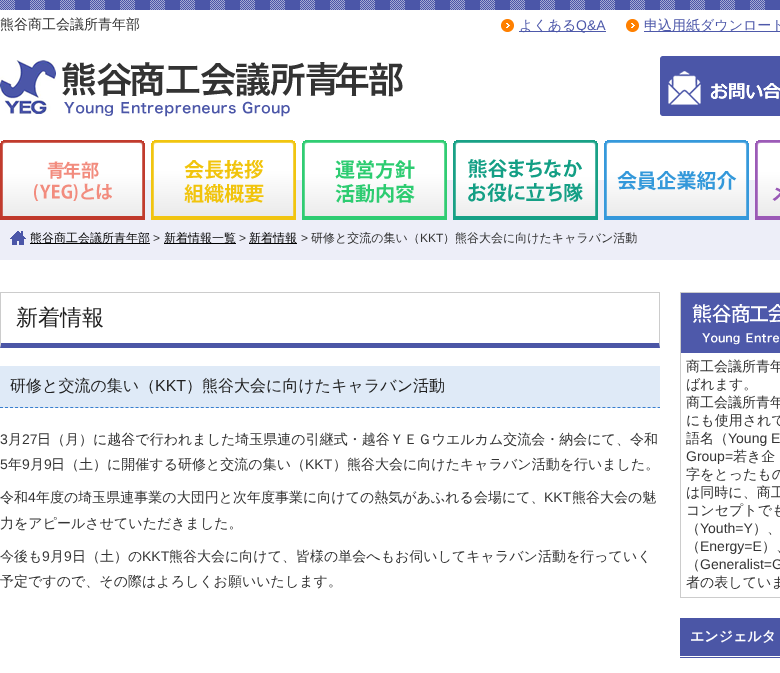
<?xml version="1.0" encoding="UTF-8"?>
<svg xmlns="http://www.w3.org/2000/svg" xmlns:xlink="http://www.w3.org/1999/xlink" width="780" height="673">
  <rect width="100%" height="100%" fill="#ffffff" />
  <image x="0" y="0" width="780" height="10" xlink:href="image1.png" />
  <image x="501" y="19" width="13" height="13" xlink:href="image2.png" />
  <rect x="519" y="31" width="87" height="1" fill="#4e59aa" />
  <image x="626" y="19" width="13" height="13" xlink:href="image2.png" />
  <rect x="644" y="31" width="136" height="1" fill="#4e59aa" />
  <image x="660" y="56" width="120" height="60" xlink:href="image3.png" />
  <image x="0" y="60" width="403" height="57" xlink:href="image4.png" />
  <rect y="180" width="780" height="80" fill="#edeef8" />
  <image x="0" y="140" width="145" height="80" xlink:href="image5.png" />
  <image x="151" y="140" width="145" height="80" xlink:href="image6.png" />
  <image x="302" y="140" width="145" height="80" xlink:href="image7.png" />
  <image x="453" y="140" width="145" height="80" xlink:href="image8.png" />
  <image x="604" y="140" width="145" height="80" xlink:href="image9.png" />
  <image x="755" y="140" width="25" height="80" xlink:href="image10.png" />
  <image x="10" y="231" width="16" height="14" xlink:href="image11.png" />
  <rect x="30" y="243" width="120" height="1" fill="#000000" />
  <rect x="164" y="243" width="72" height="1" fill="#000000" />
  <rect x="249" y="243" width="48" height="1" fill="#000000" />
  <rect y="292" width="660" height="1" fill="#cccccc" />
  <path d="M 660 292 v 56 l -1 -5 v -50 z" fill="#cccccc" />
  <path d="M 660 348 h -660 l 1 -5 h 658 z" fill="#4b56a6" />
  <path d="M 0 348 v -56 l 1 1 v 50 z" fill="#cccccc" />
  <rect y="366" width="660" height="42" fill="#dfeaf7" />
  <path d="M 0 407.5 h 660" fill="none" stroke="#377ece" stroke-dasharray="3 2.02" />
  <image x="681" y="293" width="99" height="60" xlink:href="image12.png" />
  <rect x="680.5" y="292.5" width="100" height="305" fill="none" stroke="#cccccc" />
  <rect x="680" y="618" width="100" height="40" fill="#4b56a6" />
  <rect x="680" y="656" width="100" height="1" fill="#ffffff" />
  <text x="0" y="29" style="font-family: WenQuanYi Zen Hei; font-size: 14px; font-weight: 500; fill: #333333">熊谷商工会議所青年部</text>
  <text x="519" y="30" style="font-family: WenQuanYi Zen Hei; font-size: 14px; font-weight: 500; fill: #4e59aa">よくある</text>
  <text x="576" y="30" style="font-family: Liberation Sans; font-size: 14px; fill: #4e59aa">Q&amp;A</text>
  <text x="644" y="30" style="font-family: WenQuanYi Zen Hei; font-size: 14px; font-weight: 500; fill: #4e59aa">申込用紙ダウンロード</text>
  <text x="30" y="242" style="font-family: WenQuanYi Zen Hei; font-size: 12px; font-weight: 500; fill: #000000">熊谷商工会議所青年部</text>
  <text x="153" y="242" style="font-family: Liberation Sans; font-size: 12px; fill: #333333">&gt;</text>
  <text x="164" y="242" style="font-family: WenQuanYi Zen Hei; font-size: 12px; font-weight: 500; fill: #000000">新着情報一覧</text>
  <text x="239" y="242" style="font-family: Liberation Sans; font-size: 12px; fill: #333333">&gt;</text>
  <text x="249" y="242" style="font-family: WenQuanYi Zen Hei; font-size: 12px; font-weight: 500; fill: #000000">新着情報</text>
  <text x="301" y="242" style="font-family: Liberation Sans; font-size: 12px; fill: #333333">&gt;</text>
  <text x="311" y="242" style="font-family: WenQuanYi Zen Hei; font-size: 12px; font-weight: 500; fill: #333333">研修と交流の集い（</text>
  <text x="420" y="242" style="font-family: Liberation Sans; font-size: 12px; fill: #333333">KKT</text>
  <text x="443" y="242" style="font-family: WenQuanYi Zen Hei; font-size: 12px; font-weight: 500; fill: #333333">）熊谷大会に向けたキャラバン活動</text>
  <text x="16" y="325" style="font-family: WenQuanYi Zen Hei; font-size: 22px; font-weight: 500; fill: #1f1f1f">新着情報</text>
  <text x="10" y="391" style="font-family: WenQuanYi Zen Hei; font-size: 16px; font-weight: 500; fill: #1f1f1f">研修と交流の集い（</text>
  <text x="155" y="391" style="font-family: Liberation Sans; font-size: 16px; fill: #1f1f1f">KKT</text>
  <text x="186" y="391" style="font-family: WenQuanYi Zen Hei; font-size: 16px; font-weight: 500; fill: #1f1f1f">）熊谷大会に向けたキャラバン活動</text>
  <text x="0" y="444" style="font-family: Liberation Sans; font-size: 14px; fill: #333333">3</text>
  <text x="8" y="444" style="font-family: WenQuanYi Zen Hei; font-size: 14px; font-weight: 500; fill: #333333">月</text>
  <text x="22" y="444" style="font-family: Liberation Sans; font-size: 14px; fill: #333333">27</text>
  <text x="37" y="444" style="font-family: WenQuanYi Zen Hei; font-size: 14px; font-weight: 500; fill: #333333">日（月）に越谷で行われました埼玉県連の引継式・越谷ＹＥＧウエルカム交流会・納会にて、令和</text>
  <text x="0" y="469" style="font-family: Liberation Sans; font-size: 14px; fill: #333333">5</text>
  <text x="8" y="469" style="font-family: WenQuanYi Zen Hei; font-size: 14px; font-weight: 500; fill: #333333">年</text>
  <text x="22" y="469" style="font-family: Liberation Sans; font-size: 14px; fill: #333333">9</text>
  <text x="30" y="469" style="font-family: WenQuanYi Zen Hei; font-size: 14px; font-weight: 500; fill: #333333">月</text>
  <text x="44" y="469" style="font-family: Liberation Sans; font-size: 14px; fill: #333333">9</text>
  <text x="51" y="469" style="font-family: WenQuanYi Zen Hei; font-size: 14px; font-weight: 500; fill: #333333">日（土）に開催する研修と交流の集い（</text>
  <text x="305" y="469" style="font-family: Liberation Sans; font-size: 14px; fill: #333333">KKT</text>
  <text x="333" y="469" style="font-family: WenQuanYi Zen Hei; font-size: 14px; font-weight: 500; fill: #333333">）熊谷大会に向けたキャラバン活動を行いました。</text>
  <text x="0" y="502" style="font-family: WenQuanYi Zen Hei; font-size: 14px; font-weight: 500; fill: #333333">令和</text>
  <text x="28" y="502" style="font-family: Liberation Sans; font-size: 14px; fill: #333333">4</text>
  <text x="36" y="502" style="font-family: WenQuanYi Zen Hei; font-size: 14px; font-weight: 500; fill: #333333">年度の埼玉県連事業の大団円と次年度事業に向けての熱気があふれる会場にて、</text>
  <text x="544" y="502" style="font-family: Liberation Sans; font-size: 14px; fill: #333333">KKT</text>
  <text x="572" y="502" style="font-family: WenQuanYi Zen Hei; font-size: 14px; font-weight: 500; fill: #333333">熊谷大会の魅</text>
  <text x="0" y="528" style="font-family: WenQuanYi Zen Hei; font-size: 14px; font-weight: 500; fill: #333333">力をアピールさせていただきました。</text>
  <text x="0" y="561" style="font-family: WenQuanYi Zen Hei; font-size: 14px; font-weight: 500; fill: #333333">今後も</text>
  <text x="42" y="561" style="font-family: Liberation Sans; font-size: 14px; fill: #333333">9</text>
  <text x="50" y="561" style="font-family: WenQuanYi Zen Hei; font-size: 14px; font-weight: 500; fill: #333333">月</text>
  <text x="64" y="561" style="font-family: Liberation Sans; font-size: 14px; fill: #333333">9</text>
  <text x="72" y="561" style="font-family: WenQuanYi Zen Hei; font-size: 14px; font-weight: 500; fill: #333333">日（土）の</text>
  <text x="142" y="561" style="font-family: Liberation Sans; font-size: 14px; fill: #333333">KKT</text>
  <text x="169" y="561" style="font-family: WenQuanYi Zen Hei; font-size: 14px; font-weight: 500; fill: #333333">熊谷大会に向けて、皆様の単会へもお伺いしてキャラバン活動を行っていく</text>
  <text x="0" y="586" style="font-family: WenQuanYi Zen Hei; font-size: 14px; font-weight: 500; fill: #333333">予定ですので、その際はよろしくお願いいたします。</text>
  <text x="686" y="371" style="font-family: WenQuanYi Zen Hei; font-size: 14px; font-weight: 500; fill: #333333">商工会議所青年</text>
  <text x="686" y="389" style="font-family: WenQuanYi Zen Hei; font-size: 14px; font-weight: 500; fill: #333333">ばれます。</text>
  <text x="686" y="407" style="font-family: WenQuanYi Zen Hei; font-size: 14px; font-weight: 500; fill: #333333">商工会議所青年</text>
  <text x="686" y="425" style="font-family: WenQuanYi Zen Hei; font-size: 14px; font-weight: 500; fill: #333333">にも使用されて</text>
  <text x="686" y="443" style="font-family: WenQuanYi Zen Hei; font-size: 14px; font-weight: 500; fill: #333333">語名（</text>
  <text x="728" y="443" style="font-family: Liberation Sans; font-size: 14px; fill: #333333">Young E</text>
  <text x="686" y="461" style="font-family: Liberation Sans; font-size: 14px; fill: #333333">Group=</text>
  <text x="733" y="461" style="font-family: WenQuanYi Zen Hei; font-size: 14px; font-weight: 500; fill: #333333">若き企</text>
  <text x="686" y="479" style="font-family: WenQuanYi Zen Hei; font-size: 14px; font-weight: 500; fill: #333333">字をとったもの</text>
  <text x="686" y="497" style="font-family: WenQuanYi Zen Hei; font-size: 14px; font-weight: 500; fill: #333333">は同時に、商工</text>
  <text x="686" y="515" style="font-family: WenQuanYi Zen Hei; font-size: 14px; font-weight: 500; fill: #333333">コンセプトでも</text>
  <text x="686" y="533" style="font-family: WenQuanYi Zen Hei; font-size: 14px; font-weight: 500; fill: #333333">（</text>
  <text x="700" y="533" style="font-family: Liberation Sans; font-size: 14px; fill: #333333">Youth=Y</text>
  <text x="753" y="533" style="font-family: WenQuanYi Zen Hei; font-size: 14px; font-weight: 500; fill: #333333">）、</text>
  <text x="686" y="551" style="font-family: WenQuanYi Zen Hei; font-size: 14px; font-weight: 500; fill: #333333">（</text>
  <text x="700" y="551" style="font-family: Liberation Sans; font-size: 14px; fill: #333333">Energy=E</text>
  <text x="762" y="551" style="font-family: WenQuanYi Zen Hei; font-size: 14px; font-weight: 500; fill: #333333">）、</text>
  <text x="686" y="569" style="font-family: WenQuanYi Zen Hei; font-size: 14px; font-weight: 500; fill: #333333">（</text>
  <text x="700" y="569" style="font-family: Liberation Sans; font-size: 14px; fill: #333333">Generalist=G</text>
  <text x="686" y="587" style="font-family: WenQuanYi Zen Hei; font-size: 14px; font-weight: 500; fill: #333333">者の表していま</text>
  <text x="690" y="641" style="font-family: WenQuanYi Zen Hei; font-size: 14px; font-weight: bold; fill: #ffffff">エンジェルタ</text>
</svg>
